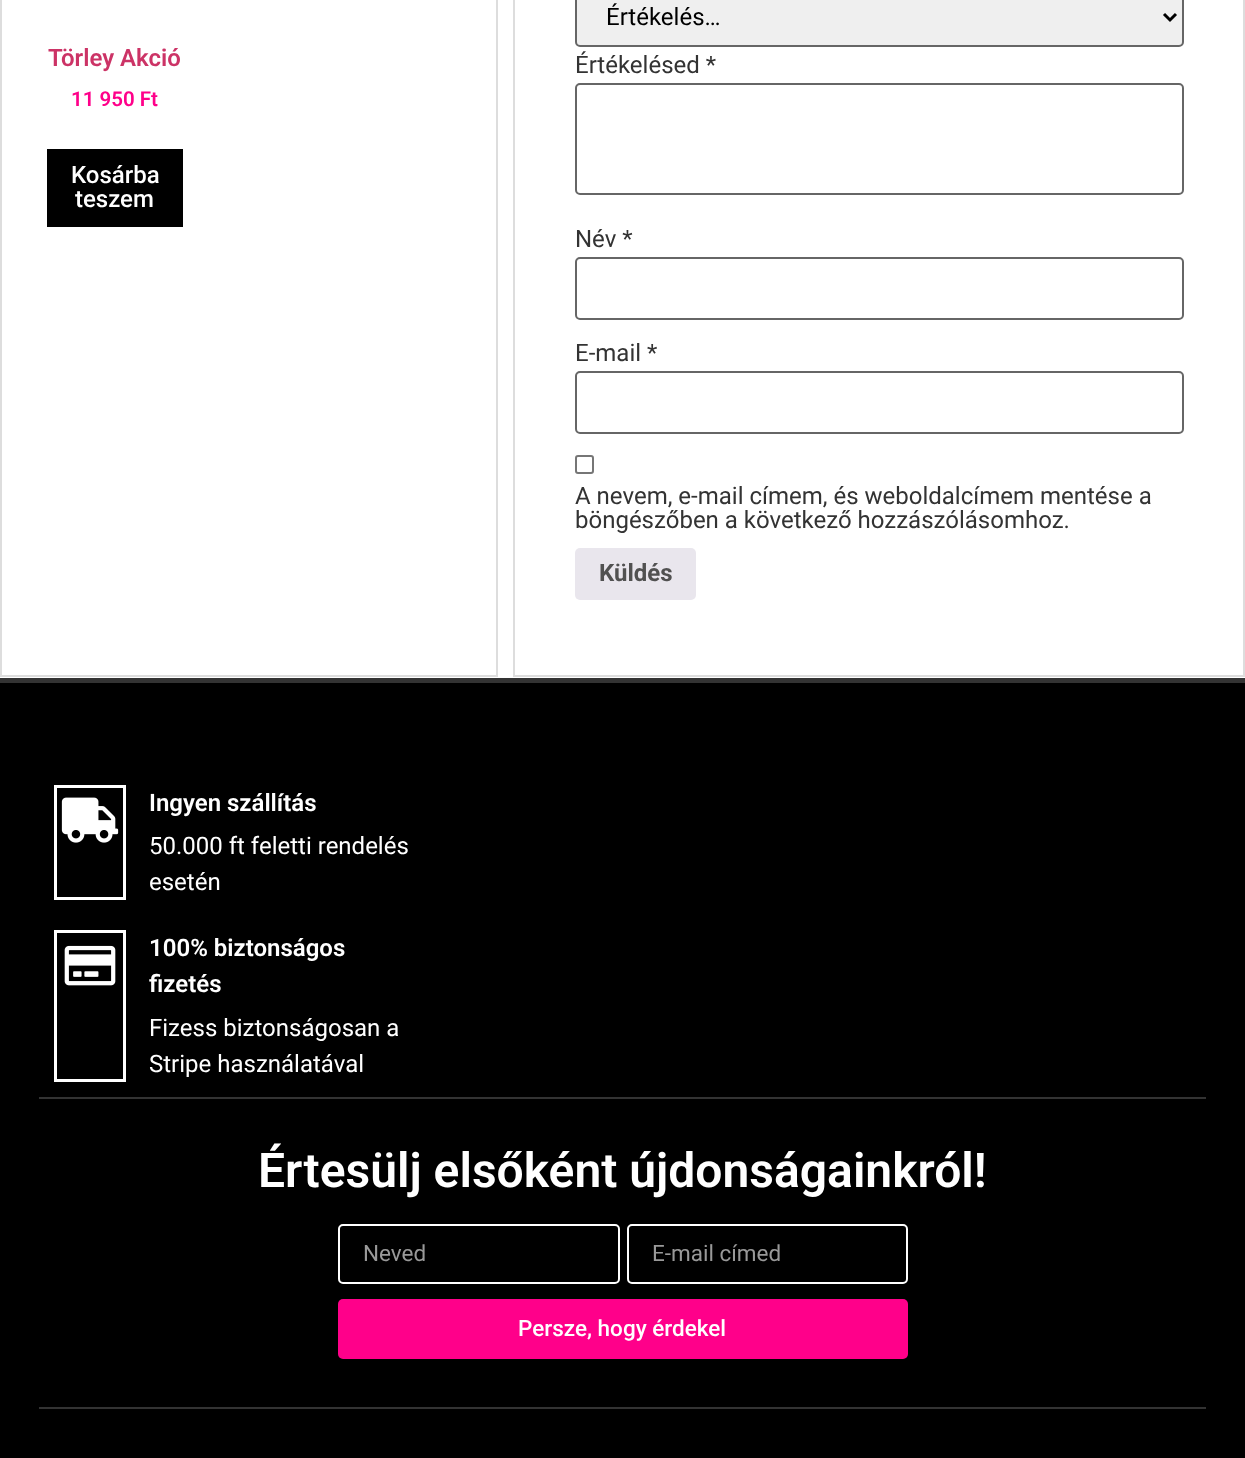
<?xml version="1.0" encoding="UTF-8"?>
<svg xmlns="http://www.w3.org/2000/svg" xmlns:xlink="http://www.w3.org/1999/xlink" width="1245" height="1458">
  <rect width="100%" height="100%" fill="#ffffff" />
  <rect x="1" y="-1" width="496" height="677" fill="none" stroke="#dddddd" stroke-width="2" />
  <rect x="47" y="149" width="136" height="78" fill="#000000" />
  <rect x="514" y="-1" width="730" height="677" fill="none" stroke="#dddddd" stroke-width="2" />
  <rect x="576" y="-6" width="607" height="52" rx="4" fill="#efefef" stroke="#666666" stroke-width="2" />
  <path d="M 1164 14 l 6 6 l 6 -6" fill="none" stroke="#000000" stroke-width="3" />
  <rect x="576" y="84" width="607" height="110" rx="4" fill="none" stroke="#666666" stroke-width="2" />
  <rect x="576" y="258" width="607" height="61" rx="4" fill="none" stroke="#666666" stroke-width="2" />
  <rect x="576" y="372" width="607" height="61" rx="4" fill="none" stroke="#666666" stroke-width="2" />
  <rect x="576" y="456" width="17" height="17" rx="2" fill="none" stroke="#767676" stroke-width="2" />
  <rect x="575" y="548" width="121" height="52" rx="5" fill="#e9e6ed" />
  <rect y="683" width="1245" height="775" fill="#000000" />
  <rect y="678" width="1245" height="5" fill="#333333" />
  <rect x="55.5" y="786.5" width="69" height="112" fill="none" stroke="#ffffff" stroke-width="3" />
  <image x="61" y="797" width="58" height="46" xlink:href="image1.png" />
  <rect x="55.5" y="931.5" width="69" height="149" fill="none" stroke="#ffffff" stroke-width="3" />
  <image x="64" y="945" width="52" height="41" xlink:href="image2.png" />
  <rect x="39" y="1097" width="1167" height="2" fill="#333333" />
  <rect x="339" y="1225" width="280" height="58" rx="4" fill="none" stroke="#ffffff" stroke-width="2" />
  <rect x="628" y="1225" width="279" height="58" rx="4" fill="none" stroke="#ffffff" stroke-width="2" />
  <rect x="338" y="1299" width="570" height="60" rx="5" fill="#ff008a" />
  <rect x="39" y="1407" width="1167" height="2" fill="#333333" />
  <text x="48" y="66" style="font-family: Roboto; font-size: 24px; font-weight: 600; fill: #cc3366">Törley Akció</text>
  <text x="71" y="106" style="font-family: Roboto; font-size: 20.5px; font-weight: 600; fill: #ff008a">11 950 Ft</text>
  <text x="71" y="183" style="font-family: Roboto; font-size: 24px; font-weight: 500; fill: #ffffff">Kosárba</text>
  <text x="75" y="207" style="font-family: Roboto; font-size: 24px; font-weight: 500; fill: #ffffff">teszem</text>
  <text x="606" y="25" style="font-family: Roboto; font-size: 24px; fill: #000000">Értékelés…</text>
  <text x="575" y="73" style="font-family: Roboto; font-size: 24px; fill: #333333">Értékelésed *</text>
  <text x="575" y="247" style="font-family: Roboto; font-size: 24px; fill: #333333">Név *</text>
  <text x="575" y="361" style="font-family: Roboto; font-size: 24px; fill: #333333">E-mail *</text>
  <text x="575" y="504" style="font-family: Roboto; font-size: 24px; fill: #333333">A nevem, e-mail címem, és weboldalcímem mentése a</text>
  <text x="575" y="528" style="font-family: Roboto; font-size: 24px; fill: #333333">böngészőben a következő hozzászólásomhoz.</text>
  <text x="599" y="581" style="font-family: Roboto; font-size: 24px; font-weight: bold; fill: #515151">Küldés</text>
  <text x="149" y="811" style="font-family: Roboto; font-size: 24px; font-weight: 600; fill: #ffffff">Ingyen szállítás</text>
  <text x="149" y="854" style="font-family: Roboto; font-size: 24px; fill: #ffffff">50.000 ft feletti rendelés</text>
  <text x="149" y="890" style="font-family: Roboto; font-size: 24px; fill: #ffffff">esetén</text>
  <text x="149" y="956" style="font-family: Roboto; font-size: 24px; font-weight: 600; fill: #ffffff">100% biztonságos</text>
  <text x="149" y="992" style="font-family: Roboto; font-size: 24px; font-weight: 600; fill: #ffffff">fizetés</text>
  <text x="149" y="1036" style="font-family: Roboto; font-size: 24px; fill: #ffffff">Fizess biztonságosan a</text>
  <text x="149" y="1072" style="font-family: Roboto; font-size: 24px; fill: #ffffff">Stripe használatával</text>
  <text x="258" y="1187" style="font-family: Roboto; font-size: 48px; font-weight: 600; fill: #ffffff">Értesülj elsőként újdonságainkról!</text>
  <text x="363" y="1261" style="font-family: Roboto; font-size: 22.5px; fill: #999999">Neved</text>
  <text x="652" y="1261" style="font-family: Roboto; font-size: 22.5px; fill: #999999">E-mail címed</text>
  <text x="518" y="1336" style="font-family: Roboto; font-size: 22.5px; font-weight: 500; fill: #ffffff">Persze, hogy érdekel</text>
</svg>
